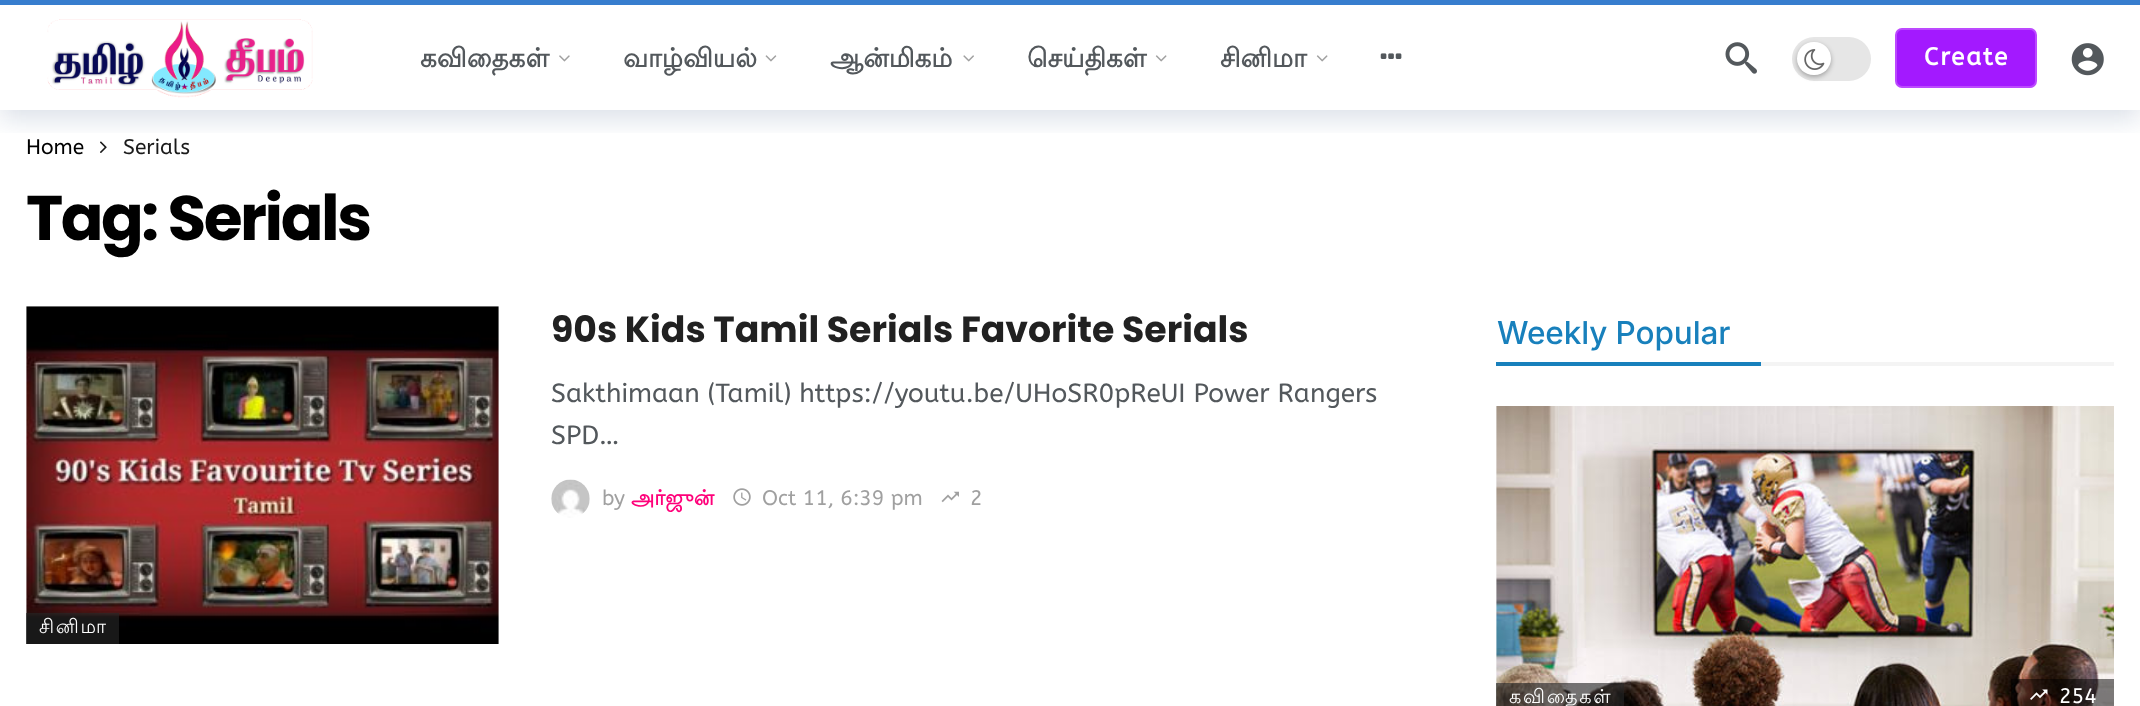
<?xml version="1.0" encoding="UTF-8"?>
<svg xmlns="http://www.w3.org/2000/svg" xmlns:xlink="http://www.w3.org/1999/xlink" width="2140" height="706">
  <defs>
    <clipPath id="clip1"><rect x="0" y="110" width="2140" height="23" /></clipPath>
  </defs>
  <rect width="100%" height="100%" fill="#ffffff" />
  <image x="100" y="141" width="7" height="12" xlink:href="image10.png" />
  <g clip-path="url(#clip1)">
    <rect y="9" width="2140" height="110" fill="#043163" fill-opacity="0.15" filter="blur(13px)" />
  </g>
  <rect width="2140" height="5" fill="#377dce" />
  <image x="47" y="19" width="266" height="79" xlink:href="image1.png" />
  <image x="559" y="55" width="11" height="7" xlink:href="image2.png" />
  <image x="765" y="55" width="12" height="7" xlink:href="image3.png" />
  <image x="963" y="55" width="11" height="7" xlink:href="image4.png" />
  <image x="1155" y="55" width="12" height="7" xlink:href="image5.png" />
  <image x="1316" y="55" width="12" height="7" xlink:href="image5.png" />
  <image x="1380" y="53" width="22" height="6" xlink:href="image6.png" />
  <image x="1725" y="42" width="32" height="32" xlink:href="image7.png" />
  <rect x="1792" y="37" width="79" height="44" rx="22" fill="#e6e6e6" />
  <rect x="1797" y="44" width="34" height="33" rx="16.5" fill="#000000" fill-opacity="0.3" filter="blur(2.5px)" />
  <rect x="1797" y="42" width="34" height="33" rx="16.5" fill="#ffffff" />
  <image x="1804" y="49" width="21" height="21" xlink:href="image8.png" />
  <rect x="1896" y="29" width="140" height="58" rx="6" fill="#a319ff" stroke="#bc49ff" stroke-width="2" />
  <image x="2071" y="43" width="33" height="33" xlink:href="image9.png" />
  <image x="551" y="479" width="39" height="39" xlink:href="image11.png" />
  <image x="733" y="488" width="18" height="18" xlink:href="image12.png" />
  <image x="941" y="491" width="18" height="12" xlink:href="image13.png" />
  <rect x="26" y="306" width="473" height="338" fill="#f6f6f6" />
  <image x="26" y="306" width="473" height="338" xlink:href="image14.png" />
  <rect x="26" y="613" width="93" height="31" fill="#262626" fill-opacity="0.63" />
  <rect x="1496" y="362" width="265" height="4" fill="#1880bc" />
  <rect x="1761" y="362" width="353" height="4" fill="#f4f4f4" />
  <rect x="1496" y="406" width="1" height="300" fill="#f6f6f6" />
  <image x="1496" y="406" width="618" height="300" xlink:href="image15.png" />
  <rect x="1496" y="683" width="128" height="23" fill="#262626" fill-opacity="0.63" />
  <rect x="2011" y="679" width="103" height="27" fill="#000000" fill-opacity="0.5" />
  <image x="2030" y="689" width="18" height="11" xlink:href="image16.png" />
  <text x="420" y="67" style="font-family: Lohit Tamil; font-size: 26.25px; font-weight: bold; fill: #53585c">கவிதைகள்</text>
  <text x="623" y="67" style="font-family: Lohit Tamil; font-size: 26.25px; font-weight: bold; fill: #53585c">வாழ்வியல்</text>
  <text x="830" y="67" style="font-family: Lohit Tamil; font-size: 26.25px; font-weight: bold; fill: #53585c">ஆன்மிகம்</text>
  <text x="1027" y="67" style="font-family: Lohit Tamil; font-size: 26.25px; font-weight: bold; fill: #53585c">செய்திகள்</text>
  <text x="1220" y="67" style="font-family: Lohit Tamil; font-size: 26.25px; font-weight: bold; fill: #53585c">சினிமா</text>
  <text x="1924" y="65" style="font-family: ABeeZee; font-size: 24.5px; font-weight: bold; letter-spacing: 1.75px; fill: #ffffff">Create</text>
  <text x="26" y="154" style="font-family: ABeeZee; font-size: 21px; fill: #000000">Home</text>
  <text x="123" y="154" style="font-family: ABeeZee; font-size: 21px; fill: #1a1a1a">Serials</text>
  <text x="26" y="240" style="font-family: Poppins; font-size: 63px; font-weight: bold; letter-spacing: -2.5px; fill: #000000">Tag: Serials</text>
  <text x="551" y="342" style="font-family: Poppins; font-size: 36.25px; font-weight: bold; fill: #212121">90s Kids Tamil Serials Favorite Serials</text>
  <text x="551" y="402" style="font-family: ABeeZee; font-size: 26.25px; fill: #53585c">Sakthimaan (Tamil) https://youtu.be/UHoSR0pReUI Power Rangers</text>
  <text x="551" y="444" style="font-family: ABeeZee; font-size: 26.25px; fill: #53585c">SPD…</text>
  <text x="602" y="505" style="font-family: ABeeZee; font-size: 21px; fill: #a0a0a0">by</text>
  <text x="631" y="505" style="font-family: Lohit Tamil; font-size: 21px; font-weight: bold; fill: #ff007a">அர்ஜுன்</text>
  <text x="762" y="505" style="font-family: ABeeZee; font-size: 21px; fill: #a0a0a0">Oct 11, 6:39 pm</text>
  <text x="970" y="505" style="font-family: ABeeZee; font-size: 21px; fill: #a0a0a0">2</text>
  <text x="39" y="633" style="font-family: Lohit Tamil; font-size: 19.25px; letter-spacing: 1.75px; fill: #ffffff">சினிமா</text>
  <text x="1497" y="344" style="font-family: Inter; font-size: 31.5px; font-weight: 500; letter-spacing: -0.1px; fill: #1880bc">Weekly Popular</text>
  <text x="1509" y="703" style="font-family: Lohit Tamil; font-size: 19.25px; letter-spacing: 1.75px; fill: #ffffff">கவிதைகள்</text>
  <text x="2059" y="703" style="font-family: ABeeZee; font-size: 21px; fill: #ffffff">254</text>
</svg>
